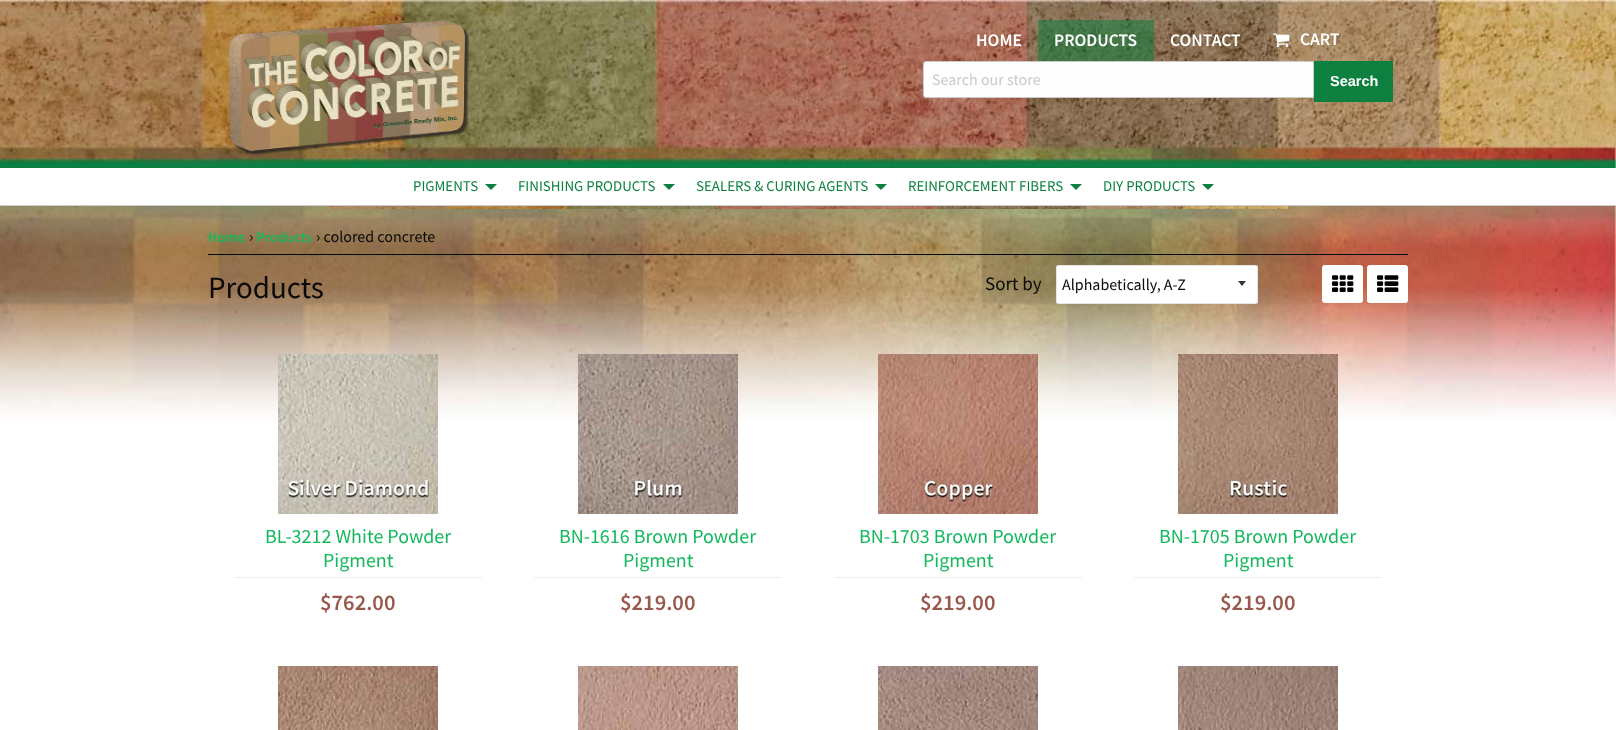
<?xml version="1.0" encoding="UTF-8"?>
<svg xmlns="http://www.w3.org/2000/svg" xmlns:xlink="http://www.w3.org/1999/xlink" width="1616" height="730">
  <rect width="100%" height="100%" fill="#ffffff" />
  <image x="0" y="0" width="1616" height="420" xlink:href="image1.png" />
  <image x="229" y="19" width="241" height="136" xlink:href="image2.png" />
  <rect x="1038" y="20" width="116" height="41" fill="#0d8040" fill-opacity="0.55" />
  <image x="1273" y="33" width="17" height="15" xlink:href="image3.png" />
  <path d="M 926 61.5 h 387.5 v 36 h -387.5 c -1.5 0 -2.5 -1 -2.5 -2.5 v -31 c 0 -1.5 1 -2.5 2.5 -2.5 z" fill="#fefefe" stroke="#cacaca" />
  <rect x="1314" y="61" width="79" height="41" fill="#0d8040" />
  <rect y="168" width="1616" height="37" fill="#ffffff" />
  <rect y="205" width="1616" height="1" fill="#cccccc" />
  <path d="M 485 184 h 12 l -6 6 z" fill="#0d8040" />
  <path d="M 663 184 h 12 l -6 6 z" fill="#0d8040" />
  <path d="M 875 184 h 12 l -6 6 z" fill="#0d8040" />
  <path d="M 1070 184 h 12 l -6 6 z" fill="#0d8040" />
  <path d="M 1202 184 h 12 l -6 6 z" fill="#0d8040" />
  <image x="328" y="206" width="960" height="3" xlink:href="image4.png" />
  <rect x="208" y="254" width="1200" height="1" fill="#010c06" />
  <rect x="1056" y="265" width="202" height="39" rx="3" fill="#ffffff" />
  <path d="M 1238 281 l 4 5 l 4 -5 z" fill="#333333" />
  <rect x="1056.5" y="265.5" width="201" height="38" rx="2.5" fill="none" stroke="#e5e5e5" />
  <rect x="1322" y="265" width="41" height="38" rx="3" fill="#ffffff" />
  <image x="1332" y="275" width="22" height="17" xlink:href="image5.png" />
  <rect x="1367" y="265" width="41" height="38" rx="3" fill="#ffffff" />
  <image x="1377" y="275" width="22" height="17" xlink:href="image6.png" />
  <image x="278" y="354" width="160" height="160" xlink:href="image7.png" />
  <rect x="234" y="577" width="248" height="1" fill="#eeeeee" />
  <image x="578" y="354" width="160" height="160" xlink:href="image8.png" />
  <rect x="534" y="577" width="248" height="1" fill="#eeeeee" />
  <image x="878" y="354" width="160" height="160" xlink:href="image9.png" />
  <rect x="834" y="577" width="248" height="1" fill="#eeeeee" />
  <image x="1178" y="354" width="160" height="160" xlink:href="image10.png" />
  <rect x="1134" y="577" width="248" height="1" fill="#eeeeee" />
  <image x="278" y="666" width="160" height="64" xlink:href="image11.png" />
  <image x="578" y="666" width="160" height="64" xlink:href="image12.png" />
  <image x="878" y="666" width="160" height="64" xlink:href="image13.png" />
  <image x="1178" y="666" width="160" height="64" xlink:href="image14.png" />
  <text x="976" y="46" style="font-family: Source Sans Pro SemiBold; font-size: 17.5px; font-weight: 600; fill: #ffffff">HOME</text>
  <text x="1054" y="46" style="font-family: Source Sans Pro SemiBold; font-size: 17.5px; font-weight: 600; fill: #ffffff">PRODUCTS</text>
  <text x="1170" y="46" style="font-family: Source Sans Pro SemiBold; font-size: 17.5px; font-weight: 600; fill: #ffffff">CONTACT</text>
  <text x="1300" y="45" style="font-family: Source Sans Pro SemiBold; font-size: 17.5px; font-weight: 600; fill: #ffffff">CART</text>
  <text x="932" y="85" style="font-family: Source Sans Pro; font-size: 16px; fill: #cacaca">Search our store</text>
  <text x="1330" y="86" style="font-family: Liberation Sans; font-size: 14.5px; font-weight: bold; fill: #ffffff">Search</text>
  <text x="413" y="191" style="font-family: Source Sans Pro; font-size: 14.9px; fill: #0d8040">PIGMENTS</text>
  <text x="518" y="191" style="font-family: Source Sans Pro; font-size: 14.9px; fill: #0d8040">FINISHING PRODUCTS</text>
  <text x="696" y="191" style="font-family: Source Sans Pro; font-size: 14.9px; fill: #0d8040">SEALERS &amp; CURING AGENTS</text>
  <text x="908" y="191" style="font-family: Source Sans Pro; font-size: 14.9px; fill: #0d8040">REINFORCEMENT FIBERS</text>
  <text x="1103" y="191" style="font-family: Source Sans Pro; font-size: 14.9px; fill: #0d8040">DIY PRODUCTS</text>
  <text x="208" y="242" style="font-family: Source Sans Pro SemiBold; font-size: 14.5px; font-weight: 600; fill: #13b85c">Home</text>
  <text x="249" y="242" style="font-family: Source Sans Pro; font-size: 16px; fill: #0a0a0a">›</text>
  <text x="256" y="242" style="font-family: Source Sans Pro SemiBold; font-size: 14.5px; font-weight: 600; fill: #13b85c">Products</text>
  <text x="316" y="242" style="font-family: Source Sans Pro; font-size: 16px; fill: #0a0a0a">› colored concrete</text>
  <text x="208" y="298" style="font-family: Source Sans Pro; font-size: 31px; fill: #0a0a0a">Products</text>
  <text x="985" y="290" style="font-family: Source Sans Pro; font-size: 19px; fill: #0a0a0a">Sort by</text>
  <text x="1062" y="290" style="font-family: Source Sans Pro; font-size: 16px; fill: #0a0a0a">Alphabetically, A-Z</text>
  <text x="265" y="543" style="font-family: Source Sans Pro; font-size: 20px; fill: #13b85c">BL-3212 White Powder</text>
  <text x="323" y="567" style="font-family: Source Sans Pro; font-size: 20px; fill: #13b85c">Pigment</text>
  <text x="320" y="610" style="font-family: Source Sans Pro SemiBold; font-size: 22.5px; font-weight: 600; fill: #9a584c">$762.00</text>
  <text x="559" y="543" style="font-family: Source Sans Pro; font-size: 20px; fill: #13b85c">BN-1616 Brown Powder</text>
  <text x="623" y="567" style="font-family: Source Sans Pro; font-size: 20px; fill: #13b85c">Pigment</text>
  <text x="620" y="610" style="font-family: Source Sans Pro SemiBold; font-size: 22.5px; font-weight: 600; fill: #9a584c">$219.00</text>
  <text x="859" y="543" style="font-family: Source Sans Pro; font-size: 20px; fill: #13b85c">BN-1703 Brown Powder</text>
  <text x="923" y="567" style="font-family: Source Sans Pro; font-size: 20px; fill: #13b85c">Pigment</text>
  <text x="920" y="610" style="font-family: Source Sans Pro SemiBold; font-size: 22.5px; font-weight: 600; fill: #9a584c">$219.00</text>
  <text x="1159" y="543" style="font-family: Source Sans Pro; font-size: 20px; fill: #13b85c">BN-1705 Brown Powder</text>
  <text x="1223" y="567" style="font-family: Source Sans Pro; font-size: 20px; fill: #13b85c">Pigment</text>
  <text x="1220" y="610" style="font-family: Source Sans Pro SemiBold; font-size: 22.5px; font-weight: 600; fill: #9a584c">$219.00</text>
</svg>
